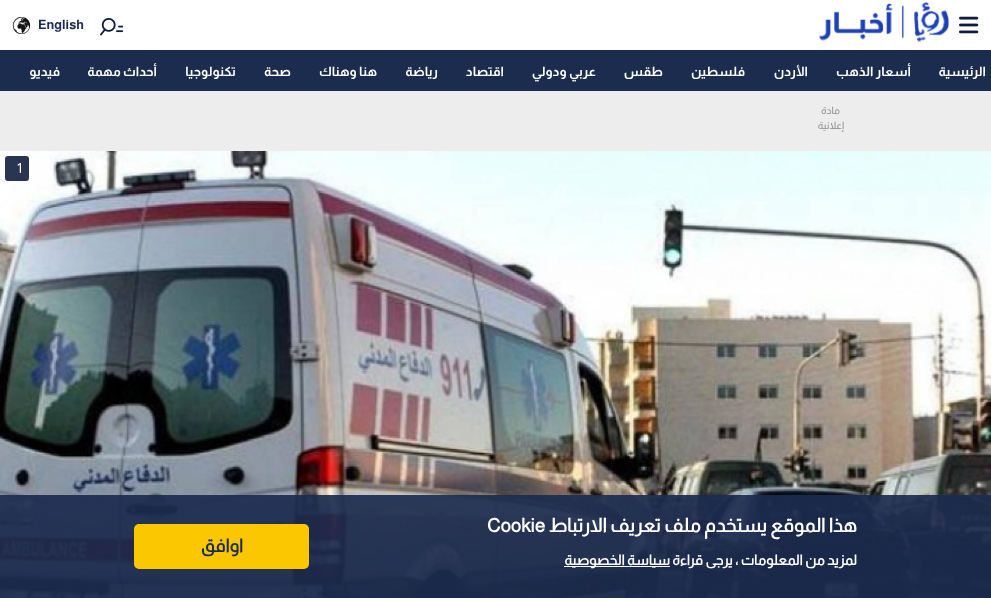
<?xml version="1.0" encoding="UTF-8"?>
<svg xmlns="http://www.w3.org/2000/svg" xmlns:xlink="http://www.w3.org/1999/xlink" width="991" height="598">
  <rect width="100%" height="100%" fill="#ededed" />
  <rect width="991" height="50" fill="#ffffff" />
  <image x="959" y="16" width="20" height="18" xlink:href="image1.png" />
  <image x="819" y="2" width="130" height="40" xlink:href="image2.png" />
  <image x="100" y="18" width="24" height="18" xlink:href="image3.png" />
  <image x="12" y="17" width="19" height="17" xlink:href="image4.png" />
  <rect y="50" width="991" height="41" fill="#1b2c4f" />
  <image x="0" y="151" width="991" height="447" xlink:href="image5.png" />
  <rect y="495" width="991" height="103" fill="#1c2b4f" fill-opacity="0.92" />
  <rect x="564" y="566" width="106" height="1" fill="#ffffff" />
  <rect x="134" y="524" width="175" height="45" rx="5" fill="#fbc700" />
  <rect x="5" y="156" width="24" height="25" rx="3" fill="#293551" />
  <text x="38" y="29" style="font-family: Almarai; font-size: 13px; font-weight: bold; fill: #1c2b4f">English</text>
  <text x="986" y="76" style="font-family: Almarai; font-size: 13px; font-weight: bold; direction: rtl; fill: #ffffff">الرئيسية</text>
  <text x="911" y="76" style="font-family: Almarai; font-size: 13px; font-weight: bold; direction: rtl; fill: #ffffff">أسعار الذهب</text>
  <text x="808" y="76" style="font-family: Almarai; font-size: 13px; font-weight: bold; direction: rtl; fill: #ffffff">الأردن</text>
  <text x="745" y="76" style="font-family: Almarai; font-size: 13px; font-weight: bold; direction: rtl; fill: #ffffff">فلسطين</text>
  <text x="663" y="76" style="font-family: Almarai; font-size: 13px; font-weight: bold; direction: rtl; fill: #ffffff">طقس</text>
  <text x="596" y="76" style="font-family: Almarai; font-size: 13px; font-weight: bold; direction: rtl; fill: #ffffff">عربي ودولي</text>
  <text x="504" y="76" style="font-family: Almarai; font-size: 13px; font-weight: bold; direction: rtl; fill: #ffffff">اقتصاد</text>
  <text x="438" y="76" style="font-family: Almarai; font-size: 13px; font-weight: bold; direction: rtl; fill: #ffffff">رياضة</text>
  <text x="377" y="76" style="font-family: Almarai; font-size: 13px; font-weight: bold; direction: rtl; fill: #ffffff">هنا وهناك</text>
  <text x="291" y="76" style="font-family: Almarai; font-size: 13px; font-weight: bold; direction: rtl; fill: #ffffff">صحة</text>
  <text x="236" y="76" style="font-family: Almarai; font-size: 13px; font-weight: bold; direction: rtl; fill: #ffffff">تكنولوجيا</text>
  <text x="157" y="76" style="font-family: Almarai; font-size: 13px; font-weight: bold; direction: rtl; fill: #ffffff">أحداث مهمة</text>
  <text x="60" y="76" style="font-family: Almarai; font-size: 13px; font-weight: bold; direction: rtl; fill: #ffffff">فيديو</text>
  <text x="857" y="532" style="font-family: 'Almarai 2'; font-size: 19px; font-weight: bold; direction: rtl; fill: #ffffff">هذا الموقع يستخدم ملف تعريف الارتباط</text>
  <text x="487" y="532" style="font-family: 'Almarai 2'; font-size: 19px; font-weight: bold; fill: #ffffff">Cookie</text>
  <text x="857" y="565" style="font-family: 'Almarai 2'; font-size: 14px; font-weight: bold; direction: rtl; fill: #ffffff">لمزيد من المعلومات ، يرجى قراءة</text>
  <text x="670" y="565" style="font-family: 'Almarai 2'; font-size: 14px; font-weight: bold; direction: rtl; fill: #ffffff">سياسة الخصوصية</text>
  <text x="243" y="552" style="font-family: 'Almarai 2'; font-size: 18px; font-weight: bold; direction: rtl; fill: #1c2b4f">اوافق</text>
  <text x="840" y="114" style="font-family: Almarai; font-size: 10px; direction: rtl; fill: #918d8d">مادة</text>
  <text x="844" y="129" style="font-family: Almarai; font-size: 10px; direction: rtl; fill: #918d8d">إعلانية</text>
  <text x="17" y="173" style="font-family: Almarai; font-size: 14px; fill: #ffffff">1</text>
</svg>
